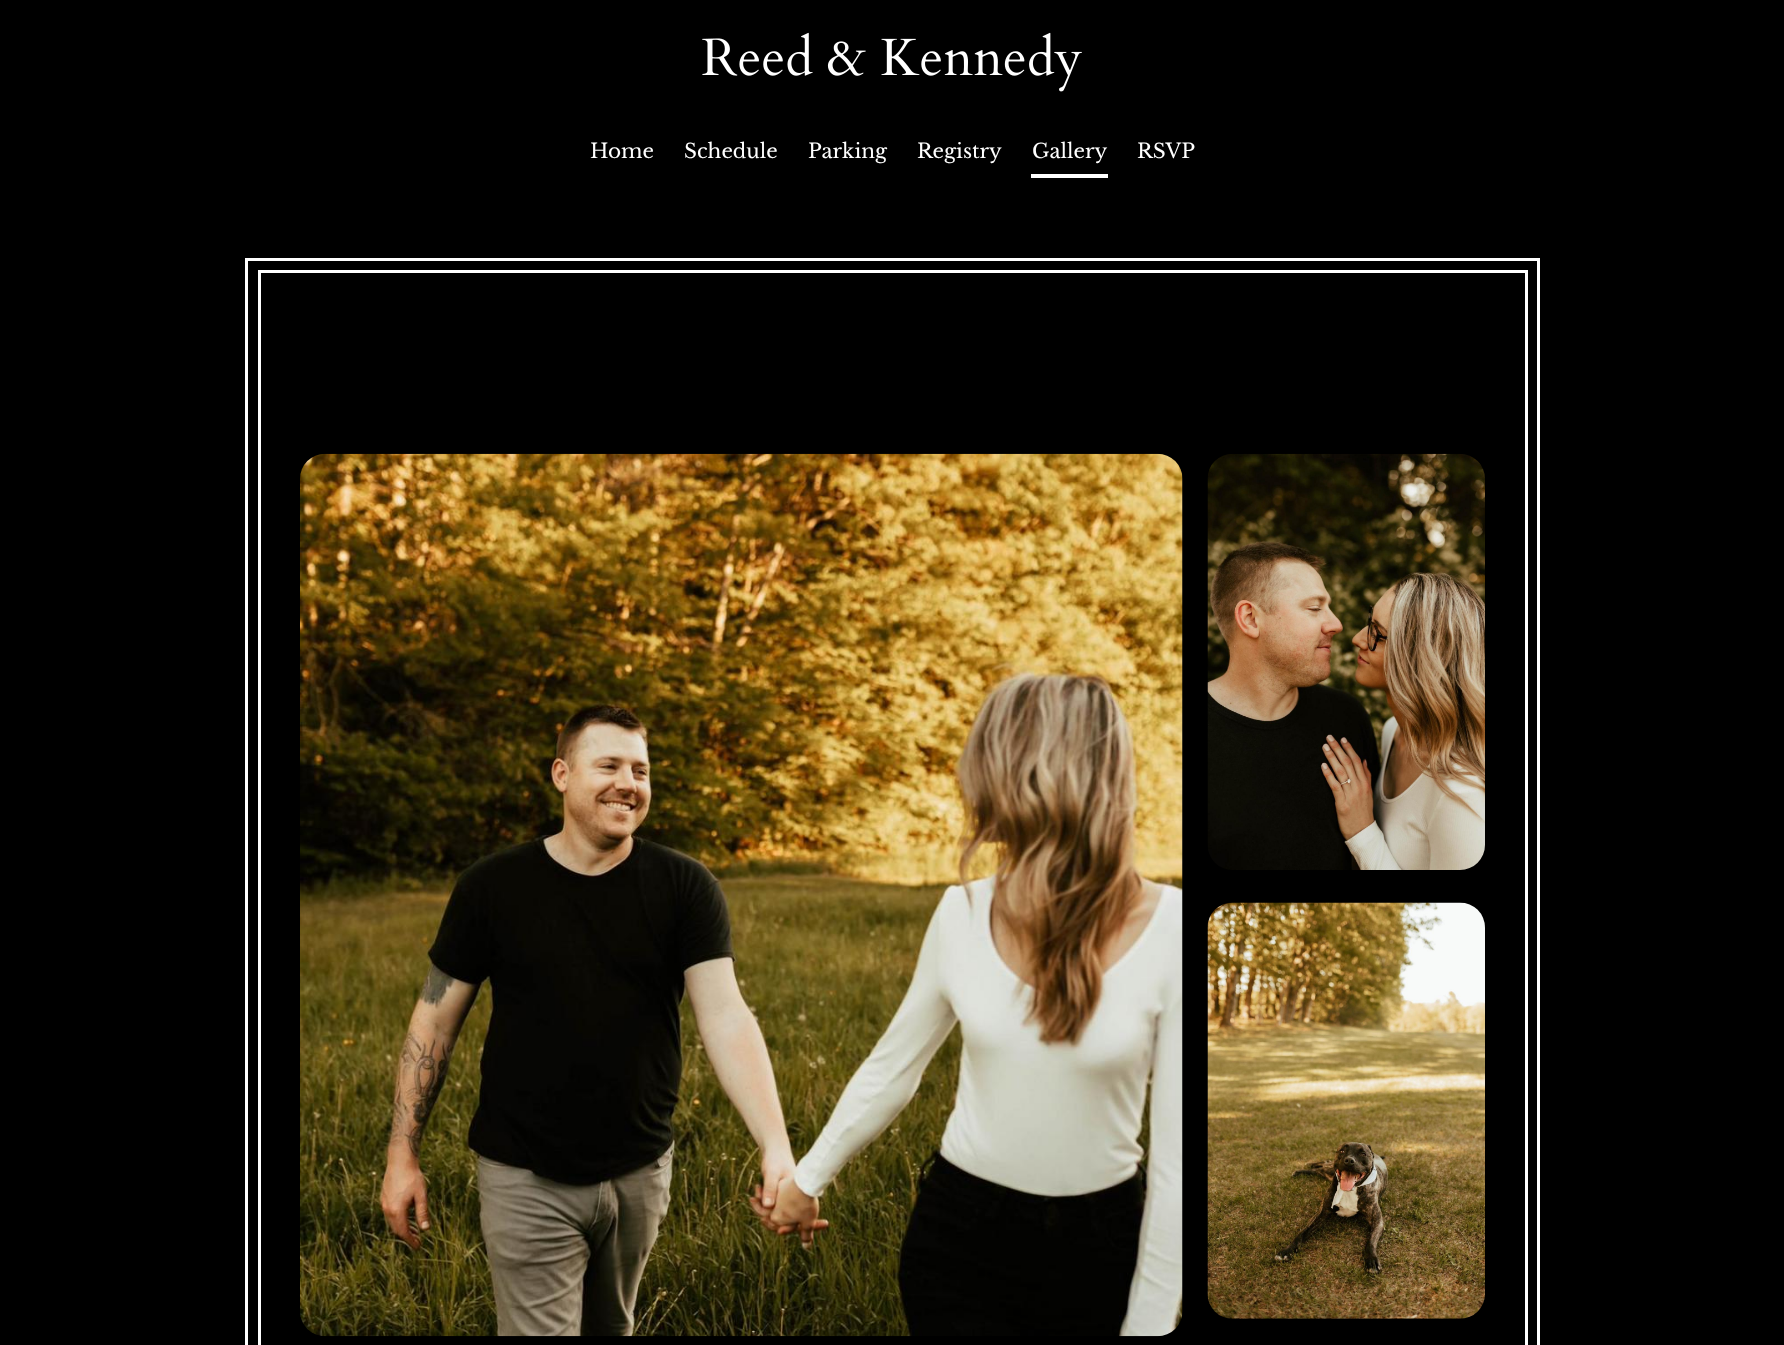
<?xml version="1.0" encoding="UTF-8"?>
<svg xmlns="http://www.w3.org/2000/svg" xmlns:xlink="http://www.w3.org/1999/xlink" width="1784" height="1345">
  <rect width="100%" height="100%" fill="#000000" />
  <image x="702" y="32" width="380" height="60" xlink:href="image1.png" />
  <rect x="1031" y="174" width="77" height="4" fill="#ffffff" />
  <rect x="246.5" y="259.5" width="1292" height="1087" fill="none" stroke="#ffffff" stroke-width="3" />
  <rect x="259.5" y="271.5" width="1267" height="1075" fill="none" stroke="#ffffff" stroke-width="3" />
  <image x="300" y="453" width="883" height="884" xlink:href="image2.png" />
  <image x="1207" y="453" width="278" height="417" xlink:href="image3.png" />
  <image x="1207" y="902" width="278" height="417" xlink:href="image4.png" />
  <text x="590" y="158" style="font-family: Libre Baskerville; font-size: 20px; fill: #ffffff">Home</text>
  <text x="684" y="158" style="font-family: Libre Baskerville; font-size: 20px; fill: #ffffff">Schedule</text>
  <text x="808" y="158" style="font-family: Libre Baskerville; font-size: 20px; fill: #ffffff">Parking</text>
  <text x="917" y="158" style="font-family: Libre Baskerville; font-size: 20px; fill: #ffffff">Registry</text>
  <text x="1032" y="158" style="font-family: Libre Baskerville; font-size: 20px; fill: #ffffff">Gallery</text>
  <text x="1137" y="158" style="font-family: Libre Baskerville; font-size: 20px; fill: #ffffff">RSVP</text>
</svg>
